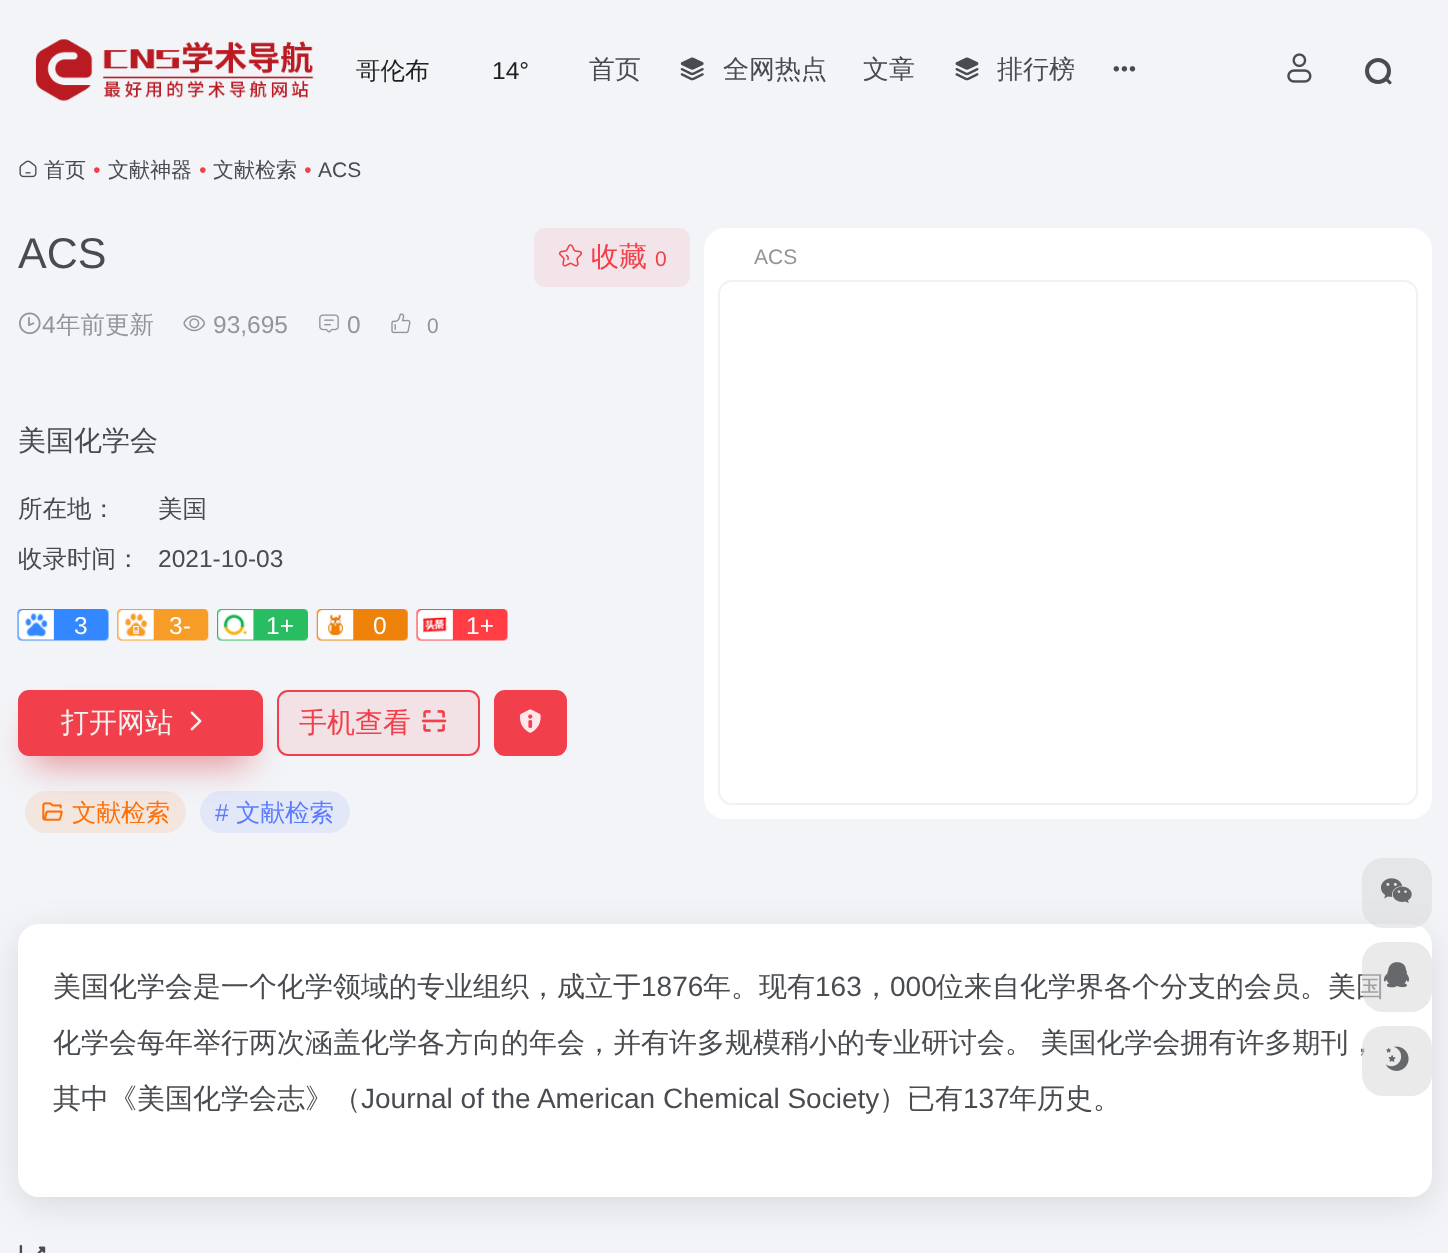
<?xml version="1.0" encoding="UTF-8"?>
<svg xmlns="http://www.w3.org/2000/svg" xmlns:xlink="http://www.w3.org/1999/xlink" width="1448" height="1253">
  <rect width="100%" height="100%" fill="#f2f4f7" />
  <image x="35" y="39" width="279" height="63" xlink:href="image1.png" />
  <image x="680" y="57" width="24" height="24" xlink:href="image2.png" />
  <image x="955" y="57" width="24" height="24" xlink:href="image3.png" />
  <image x="1113" y="66" width="23" height="6" xlink:href="image4.png" />
  <image x="1287" y="53" width="25" height="30" xlink:href="image5.png" />
  <circle cx="1378" cy="71" r="11" fill="none" stroke="#484b4f" stroke-width="4" />
  <path d="M 1388.5 79 l 3 3 c 0.5 1.5 -1 3 -2.5 2 l -3 -3 c -1 -2 1.5 -3.5 2.5 -2 z" fill="#484b4f" />
  <image x="19" y="160" width="18" height="18" xlink:href="image6.png" />
  <image x="19" y="312" width="22" height="23" xlink:href="image7.png" />
  <image x="183" y="315" width="22" height="17" xlink:href="image8.png" />
  <image x="319" y="314" width="20" height="19" xlink:href="image9.png" />
  <image x="391" y="313" width="20" height="21" xlink:href="image10.png" />
  <rect x="534" y="228" width="156" height="59" rx="11" fill="#f3e4ea" />
  <image x="558" y="244" width="25" height="23" xlink:href="image11.png" />
  <image x="17" y="609" width="92" height="32" xlink:href="image12.png" />
  <image x="117" y="609" width="92" height="32" xlink:href="image13.png" />
  <image x="217" y="609" width="91" height="32" xlink:href="image14.png" />
  <image x="316" y="609" width="92" height="32" xlink:href="image15.png" />
  <image x="416" y="609" width="92" height="32" xlink:href="image16.png" />
  <rect x="32" y="725" width="217" height="38" fill="#dc414b" fill-opacity="0.6" filter="blur(17.5px)" />
  <rect x="18" y="690" width="245" height="66" rx="11" fill="#f1404b" />
  <image x="190" y="711" width="12" height="20" xlink:href="image17.png" />
  <rect x="278" y="691" width="201" height="64" rx="10" fill="#f1404b" fill-opacity="0.1" stroke="#f1404b" stroke-width="2" />
  <image x="421" y="710" width="26" height="22" xlink:href="image18.png" />
  <rect x="494" y="690" width="73" height="66" rx="11" fill="#f1404b" />
  <image x="519" y="709" width="22" height="24" xlink:href="image19.png" />
  <rect x="25" y="791" width="161" height="42" rx="21" fill="#ff6e06" fill-opacity="0.1" />
  <image x="42" y="802" width="21" height="19" xlink:href="image20.png" />
  <rect x="200" y="791" width="150" height="42" rx="21" fill="#5c7dff" fill-opacity="0.1" />
  <rect x="704" y="228" width="728" height="591" rx="21" fill="#ffffff" />
  <rect x="719" y="281" width="698" height="523" rx="13" fill="none" stroke="#f1f1f1" stroke-width="2" />
  <image x="19" y="1244" width="27" height="9" xlink:href="image21.png" />
  <rect x="18" y="933" width="1414" height="273" rx="21" fill="#000000" fill-opacity="0.1" filter="blur(17.5px)" />
  <rect x="18" y="924" width="1414" height="273" rx="21" fill="#ffffff" />
  <rect x="1362" y="858" width="70" height="70" rx="21" fill="#dcdcdc" fill-opacity="0.6" />
  <image x="1380" y="878" width="32" height="25" xlink:href="image22.png" />
  <text x="356" y="79" style="font-family: WenQuanYi Zen Hei; font-size: 24.5px; font-weight: 500; fill: #202020">哥伦布</text>
  <text x="492" y="79" style="font-family: Liberation Sans; font-size: 24.5px; fill: #202020">14°</text>
  <text x="589" y="78" style="font-family: WenQuanYi Zen Hei; font-size: 26px; font-weight: 500; fill: #484b4f">首页</text>
  <text x="723" y="78" style="font-family: WenQuanYi Zen Hei; font-size: 26px; font-weight: 500; fill: #484b4f">全网热点</text>
  <text x="863" y="78" style="font-family: WenQuanYi Zen Hei; font-size: 26px; font-weight: 500; fill: #484b4f">文章</text>
  <text x="997" y="78" style="font-family: WenQuanYi Zen Hei; font-size: 26px; font-weight: 500; fill: #484b4f">排行榜</text>
  <text x="44" y="177" style="font-family: WenQuanYi Zen Hei; font-size: 21px; font-weight: 500; fill: #484b4f">首页</text>
  <text x="93" y="177" style="font-family: Liberation Sans; font-size: 21px; font-style: italic; fill: #f1404b">•</text>
  <text x="108" y="177" style="font-family: WenQuanYi Zen Hei; font-size: 21px; font-weight: 500; fill: #484b4f">文献神器</text>
  <text x="199" y="177" style="font-family: Liberation Sans; font-size: 21px; font-style: italic; fill: #f1404b">•</text>
  <text x="213" y="177" style="font-family: WenQuanYi Zen Hei; font-size: 21px; font-weight: 500; fill: #484b4f">文献检索</text>
  <text x="304" y="177" style="font-family: Liberation Sans; font-size: 21px; font-style: italic; fill: #f1404b">•</text>
  <text x="318" y="177" style="font-family: Liberation Sans; font-size: 21px; fill: #484b4f">ACS</text>
  <text x="18" y="268" style="font-family: Liberation Sans; font-size: 43px; fill: #484b4f">ACS</text>
  <text x="42" y="333" style="font-family: Liberation Sans; font-size: 24.5px; fill: #93959a">4</text>
  <text x="56" y="333" style="font-family: WenQuanYi Zen Hei; font-size: 24.5px; font-weight: 500; fill: #93959a">年前更新</text>
  <text x="213" y="333" style="font-family: Liberation Sans; font-size: 24.5px; fill: #93959a">93,695</text>
  <text x="347" y="333" style="font-family: Liberation Sans; font-size: 24.5px; fill: #93959a">0</text>
  <text x="427" y="333" style="font-family: Liberation Sans; font-size: 21px; fill: #93959a">0</text>
  <text x="591" y="266" style="font-family: WenQuanYi Zen Hei; font-size: 28px; font-weight: 500; fill: #f1404b">收藏</text>
  <text x="655" y="266" style="font-family: Liberation Sans; font-size: 21px; fill: #f1404b">0</text>
  <text x="18" y="450" style="font-family: WenQuanYi Zen Hei; font-size: 28px; font-weight: 500; fill: #484b4f">美国化学会</text>
  <text x="18" y="517" style="font-family: WenQuanYi Zen Hei; font-size: 24.5px; font-weight: 500; fill: #484b4f">所在地：</text>
  <text x="158" y="517" style="font-family: WenQuanYi Zen Hei; font-size: 24.5px; font-weight: 500; fill: #484b4f">美国</text>
  <text x="18" y="567" style="font-family: WenQuanYi Zen Hei; font-size: 24.5px; font-weight: 500; fill: #484b4f">收录时间：</text>
  <text x="158" y="567" style="font-family: Liberation Sans; font-size: 24.5px; fill: #484b4f">2021-10-03</text>
  <text x="74" y="634" style="font-family: Liberation Sans; font-size: 24.5px; fill: #ffffff">3</text>
  <text x="169" y="634" style="font-family: Liberation Sans; font-size: 24.5px; fill: #ffffff">3-</text>
  <text x="266" y="634" style="font-family: Liberation Sans; font-size: 24.5px; fill: #ffffff">1+</text>
  <text x="373" y="634" style="font-family: Liberation Sans; font-size: 24.5px; fill: #ffffff">0</text>
  <text x="466" y="634" style="font-family: Liberation Sans; font-size: 24.5px; fill: #ffffff">1+</text>
  <text x="61" y="732" style="font-family: WenQuanYi Zen Hei; font-size: 28px; font-weight: 500; fill: #f1f2f3">打开网站</text>
  <text x="299" y="732" style="font-family: WenQuanYi Zen Hei; font-size: 28px; font-weight: 500; fill: #f1404b">手机查看</text>
  <text x="72" y="821" style="font-family: WenQuanYi Zen Hei; font-size: 24.5px; font-weight: 500; fill: #ff6f06">文献检索</text>
  <text x="215" y="821" style="font-family: Liberation Sans; font-size: 24.5px; fill: #5c7cff">#</text>
  <text x="236" y="821" style="font-family: WenQuanYi Zen Hei; font-size: 24.5px; font-weight: 500; fill: #5c7cff">文献检索</text>
  <text x="754" y="264" style="font-family: Liberation Sans; font-size: 21px; fill: #93959a">ACS</text>
  <text x="53" y="996" style="font-family: WenQuanYi Zen Hei; font-size: 28px; font-weight: 500; fill: #484b4f">美国化学会是一个化学领域的专业组织，成立于</text>
  <text x="641" y="996" style="font-family: Liberation Sans; font-size: 28px; fill: #484b4f">1876</text>
  <text x="703" y="996" style="font-family: WenQuanYi Zen Hei; font-size: 28px; font-weight: 500; fill: #484b4f">年。现有</text>
  <text x="815" y="996" style="font-family: Liberation Sans; font-size: 28px; fill: #484b4f">163</text>
  <text x="862" y="996" style="font-family: WenQuanYi Zen Hei; font-size: 28px; font-weight: 500; fill: #484b4f">，</text>
  <text x="890" y="996" style="font-family: Liberation Sans; font-size: 28px; fill: #484b4f">000</text>
  <text x="936" y="996" style="font-family: WenQuanYi Zen Hei; font-size: 28px; font-weight: 500; fill: #484b4f">位来自化学界各个分支的会员。美国</text>
  <text x="53" y="1052" word-spacing="-1" style="font-family: WenQuanYi Zen Hei; font-size: 28px; font-weight: 500; fill: #484b4f">化学会每年举行两次涵盖化学各方向的年会，并有许多规模稍小的专业研讨会。 美国化学会拥有许多期刊，</text>
  <text x="53" y="1108" style="font-family: WenQuanYi Zen Hei; font-size: 28px; font-weight: 500; fill: #484b4f">其中《美国化学会志》（</text>
  <text x="361" y="1108" style="font-family: Liberation Sans; font-size: 28px; fill: #484b4f">Journal of the American Chemical Society</text>
  <text x="879" y="1108" style="font-family: WenQuanYi Zen Hei; font-size: 28px; font-weight: 500; fill: #484b4f">）已有</text>
  <text x="963" y="1108" style="font-family: Liberation Sans; font-size: 28px; fill: #484b4f">137</text>
  <text x="1009" y="1108" style="font-family: WenQuanYi Zen Hei; font-size: 28px; font-weight: 500; fill: #484b4f">年历史。</text>
  <rect x="1362" y="942" width="70" height="70" rx="21" fill="#dcdcdc" fill-opacity="0.6" />
  <image x="1383" y="962" width="27" height="26" xlink:href="image23.png" />
  <rect x="1362" y="1026" width="70" height="70" rx="21" fill="#dcdcdc" fill-opacity="0.6" />
  <image x="1385" y="1046" width="24" height="25" xlink:href="image24.png" />
</svg>
